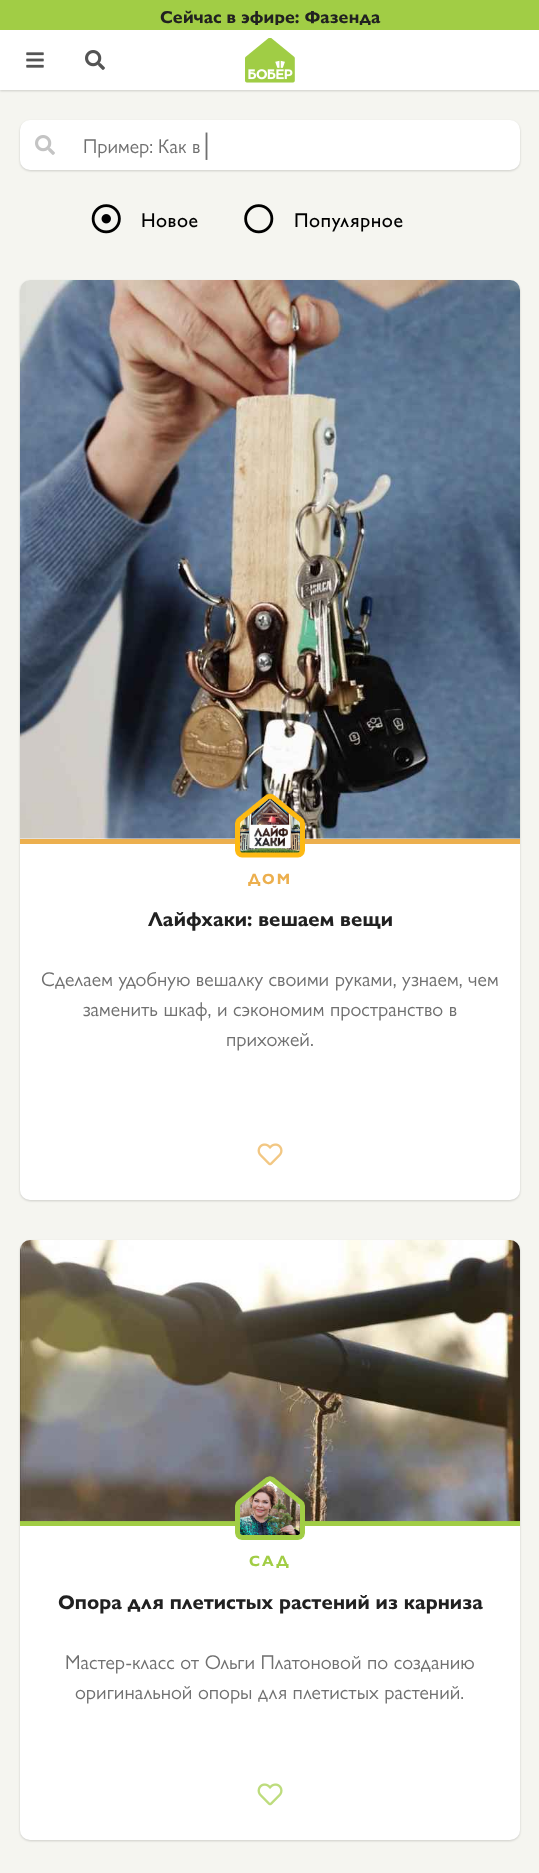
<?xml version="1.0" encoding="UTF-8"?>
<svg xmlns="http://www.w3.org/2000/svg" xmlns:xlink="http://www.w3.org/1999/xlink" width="539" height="1873">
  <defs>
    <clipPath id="clip1"><rect x="25" y="5" width="490" height="20" /></clipPath>
  </defs>
  <rect width="100%" height="100%" fill="#f5f5f0" />
  <rect y="1" width="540" height="90" fill="#000000" fill-opacity="0.16" filter="blur(1px)" />
  <rect y="30" width="539" height="60" fill="#ffffff" />
  <rect width="539" height="30" fill="#a1cd45" />
  <image x="26" y="52" width="18" height="16" xlink:href="image1.png" />
  <image x="85" y="50" width="20" height="20" xlink:href="image2.png" />
  <image x="245" y="38" width="50" height="45" xlink:href="image3.png" />
  <rect x="20" y="121" width="500" height="50" rx="10" fill="#000000" fill-opacity="0.16" filter="blur(1px)" />
  <rect x="20" y="120" width="500" height="50" rx="10" fill="#ffffff" />
  <image x="35" y="135" width="20" height="20" xlink:href="image4.png" />
  <image x="91" y="204" width="30" height="30" xlink:href="image5.png" />
  <image x="244" y="204" width="30" height="30" xlink:href="image6.png" />
  <rect x="20" y="281" width="500" height="920" rx="10" fill="#000000" fill-opacity="0.16" filter="blur(1px)" />
  <rect x="20" y="280" width="500" height="920" rx="10" fill="#ffffff" />
  <image x="20" y="280" width="500" height="559" xlink:href="image7.png" />
  <rect x="20" y="839" width="500" height="5" fill="#ecaf4e" />
  <image x="235" y="793" width="70" height="65" xlink:href="image8.png" />
  <image x="257" y="1143" width="26" height="23" xlink:href="image9.png" />
  <rect x="20" y="1241" width="500" height="600" rx="10" fill="#000000" fill-opacity="0.16" filter="blur(1px)" />
  <rect x="20" y="1240" width="500" height="600" rx="10" fill="#ffffff" />
  <rect x="20" y="1521" width="500" height="5" fill="#a1cd45" />
  <image x="20" y="1240" width="500" height="282" xlink:href="image10.png" />
  <image x="235" y="1476" width="70" height="64" xlink:href="image11.png" />
  <image x="257" y="1783" width="26" height="23" xlink:href="image12.png" />
  <g clip-path="url(#clip1)">
    <text x="160" y="23" style="font-family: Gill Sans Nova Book; font-size: 17.5px; font-weight: bold; fill: #212121">Сейчас в эфире: Фазенда</text>
  </g>
  <text x="83" y="153" style="font-family: Gill Sans Nova Book; font-size: 20px; fill: #707070">Пример:</text>
  <text x="158" y="153" style="font-family: Gill Sans Nova Book; font-size: 20px; fill: #707070">Как в</text>
  <text x="203" y="153" style="font-family: Gill Sans Nova Book; font-size: 30px; fill: #707070">|</text>
  <text x="141" y="227" style="font-family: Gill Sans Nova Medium; font-size: 20px; font-weight: 500; letter-spacing: 0.5px; fill: #000000">Новое</text>
  <text x="294" y="227" style="font-family: Gill Sans Nova Medium; font-size: 20px; font-weight: 500; letter-spacing: 0.5px; fill: #000000">Популярное</text>
  <text x="248" y="884" style="font-family: Gill Sans Nova Book; font-size: 15px; font-weight: bold; letter-spacing: 2px; fill: #ecaf4e">ДОМ</text>
  <text x="148" y="926" style="font-family: Gill Sans Nova Book; font-size: 20px; font-weight: bold; fill: #212121">Лайфхаки: вешаем вещи</text>
  <text x="41" y="986" style="font-family: Gill Sans Nova Book; font-size: 20px; fill: #707070">Сделаем удобную вешалку своими руками, узнаем, чем</text>
  <text x="83" y="1016" style="font-family: Gill Sans Nova Book; font-size: 20px; fill: #707070">заменить шкаф, и сэкономим пространство в</text>
  <text x="226" y="1046" style="font-family: Gill Sans Nova Book; font-size: 20px; fill: #707070">прихожей.</text>
  <text x="249" y="1566" style="font-family: Gill Sans Nova Book; font-size: 15px; font-weight: bold; letter-spacing: 2px; fill: #a1cd45">САД</text>
  <text x="58" y="1609" style="font-family: Gill Sans Nova Book; font-size: 20px; font-weight: bold; fill: #212121">Опора для плетистых растений из карниза</text>
  <text x="65" y="1669" style="font-family: Gill Sans Nova Book; font-size: 20px; fill: #707070">Мастер-класс от Ольги Платоновой по созданию</text>
  <text x="75" y="1699" style="font-family: Gill Sans Nova Book; font-size: 20px; fill: #707070">оригинальной опоры для плетистых растений.</text>
</svg>
